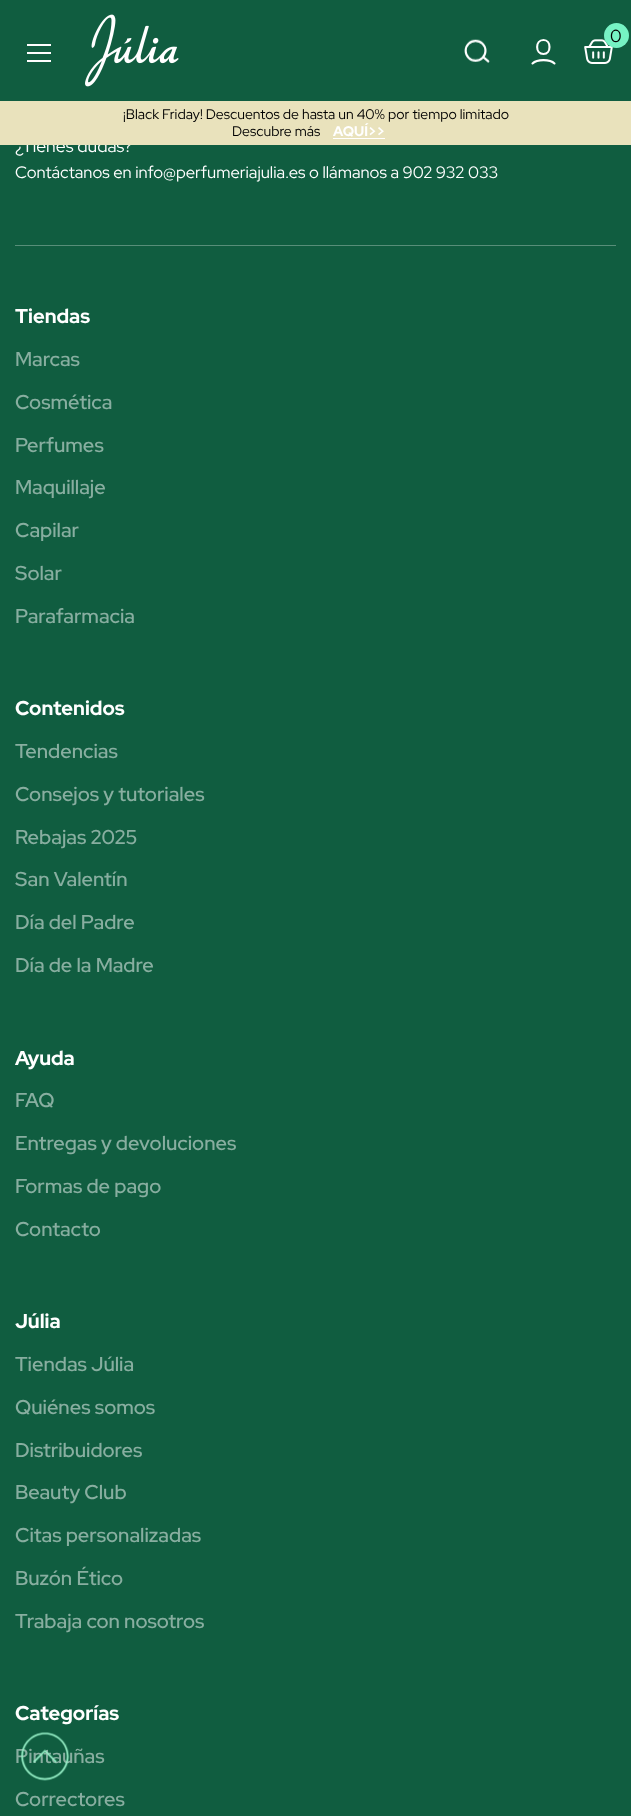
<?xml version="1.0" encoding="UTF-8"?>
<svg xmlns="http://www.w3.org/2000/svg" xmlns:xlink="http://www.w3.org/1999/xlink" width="631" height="1816">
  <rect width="100%" height="100%" fill="#105d40" />
  <image x="85" y="14" width="94" height="73" xlink:href="image1.png" />
  <image x="584" y="39" width="29" height="25" xlink:href="image2.png" />
  <circle cx="616.5" cy="35.5" r="12.5" fill="#76f3c4" />
  <image x="464" y="39" width="26" height="24" xlink:href="image3.png" />
  <path d="M 554.5 63.5 c -4.5 -4.5 -17.5 -4.5 -22 0 m 11 -23.5 c -8.5 0 -8.5 14 0 14 c 8 0 8 -14 0 -14 z" fill="none" stroke="#ffffff" stroke-width="2.1" stroke-linecap="round" />
  <path d="M 27 61 h 24 m -24 -8 h 24 m -24 -8 h 24" fill="none" stroke="#fefefe" stroke-width="2" />
  <rect x="15" y="245" width="601" height="1" fill="#588e79" />
  <text x="610" y="42" style="font-family: Red Hat Display; font-size: 17.5px; fill: #000000">0</text>
  <text x="15" y="152" style="font-family: Red Hat Display; font-size: 17.5px; fill: #ffffff">¿Tienes dudas?</text>
  <rect y="101" width="631" height="44" fill="#e9e2bc" />
  <text x="333" y="136" style="font-family: Red Hat Display; font-size: 14px; font-weight: bold; fill: #ffffff">AQUÍ&gt;&gt;</text>
  <rect x="333" y="138" width="52" height="1" fill="#ffffff" />
  <text x="232" y="136" style="font-family: Red Hat Display; font-size: 14px; fill: #000000">Descubre más</text>
  <text x="123" y="119" style="font-family: Red Hat Display; font-size: 14px; fill: #000000">¡Black Friday! Descuentos de hasta un 40% por tiempo limitado</text>
  <text x="15" y="178" style="font-family: Red Hat Display; font-size: 16.6px; fill: #ffffff">Contáctanos en info@perfumeriajulia.es o llámanos a 902 932 033</text>
  <text x="15" y="323" style="font-family: Red Hat Display; font-size: 20px; font-weight: bold; fill: #ffffff">Tiendas</text>
  <text x="15" y="366" style="font-family: Red Hat Display; font-size: 20px; font-weight: 500; fill: #88aea0">Marcas</text>
  <text x="15" y="409" style="font-family: Red Hat Display; font-size: 20px; font-weight: 500; fill: #88aea0">Cosmética</text>
  <text x="15" y="452" style="font-family: Red Hat Display; font-size: 20px; font-weight: 500; fill: #88aea0">Perfumes</text>
  <text x="15" y="494" style="font-family: Red Hat Display; font-size: 20px; font-weight: 500; fill: #88aea0">Maquillaje</text>
  <text x="15" y="537" style="font-family: Red Hat Display; font-size: 20px; font-weight: 500; fill: #88aea0">Capilar</text>
  <text x="15" y="580" style="font-family: Red Hat Display; font-size: 20px; font-weight: 500; fill: #88aea0">Solar</text>
  <text x="15" y="623" style="font-family: Red Hat Display; font-size: 20px; font-weight: 500; fill: #88aea0">Parafarmacia</text>
  <text x="15" y="715" style="font-family: Red Hat Display; font-size: 20px; font-weight: bold; fill: #ffffff">Contenidos</text>
  <text x="15" y="758" style="font-family: Red Hat Display; font-size: 20px; font-weight: 500; fill: #88aea0">Tendencias</text>
  <text x="15" y="801" style="font-family: Red Hat Display; font-size: 20px; font-weight: 500; fill: #88aea0">Consejos y tutoriales</text>
  <text x="15" y="844" style="font-family: Red Hat Display; font-size: 20px; font-weight: 500; fill: #88aea0">Rebajas 2025</text>
  <text x="15" y="886" style="font-family: Red Hat Display; font-size: 20px; font-weight: 500; fill: #88aea0">San Valentín</text>
  <text x="15" y="929" style="font-family: Red Hat Display; font-size: 20px; font-weight: 500; fill: #88aea0">Día del Padre</text>
  <text x="15" y="972" style="font-family: Red Hat Display; font-size: 20px; font-weight: 500; fill: #88aea0">Día de la Madre</text>
  <text x="15" y="1065" style="font-family: Red Hat Display; font-size: 20px; font-weight: bold; fill: #ffffff">Ayuda</text>
  <text x="15" y="1107" style="font-family: Red Hat Display; font-size: 20px; font-weight: 500; fill: #88aea0">FAQ</text>
  <text x="15" y="1150" style="font-family: Red Hat Display; font-size: 20px; font-weight: 500; fill: #88aea0">Entregas y devoluciones</text>
  <text x="15" y="1193" style="font-family: Red Hat Display; font-size: 20px; font-weight: 500; fill: #88aea0">Formas de pago</text>
  <text x="15" y="1236" style="font-family: Red Hat Display; font-size: 20px; font-weight: 500; fill: #88aea0">Contacto</text>
  <text x="15" y="1328" style="font-family: Red Hat Display; font-size: 20px; font-weight: bold; fill: #ffffff">Júlia</text>
  <text x="15" y="1371" style="font-family: Red Hat Display; font-size: 20px; font-weight: 500; fill: #88aea0">Tiendas Júlia</text>
  <text x="15" y="1414" style="font-family: Red Hat Display; font-size: 20px; font-weight: 500; fill: #88aea0">Quiénes somos</text>
  <text x="15" y="1457" style="font-family: Red Hat Display; font-size: 20px; font-weight: 500; fill: #88aea0">Distribuidores</text>
  <text x="15" y="1499" style="font-family: Red Hat Display; font-size: 20px; font-weight: 500; fill: #88aea0">Beauty Club</text>
  <text x="15" y="1542" style="font-family: Red Hat Display; font-size: 20px; font-weight: 500; fill: #88aea0">Citas personalizadas</text>
  <text x="15" y="1585" style="font-family: Red Hat Display; font-size: 20px; font-weight: 500; fill: #88aea0">Buzón Ético</text>
  <text x="15" y="1628" style="font-family: Red Hat Display; font-size: 20px; font-weight: 500; fill: #88aea0">Trabaja con nosotros</text>
  <text x="15" y="1720" style="font-family: Red Hat Display; font-size: 20px; font-weight: bold; fill: #ffffff">Categorías</text>
  <text x="15" y="1763" style="font-family: Red Hat Display; font-size: 20px; font-weight: 500; fill: #88aea0">Pintauñas</text>
  <text x="15" y="1806" style="font-family: Red Hat Display; font-size: 20px; font-weight: 500; fill: #88aea0">Correctores</text>
  <image x="21" y="1732" width="49" height="49" xlink:href="image4.png" />
</svg>
